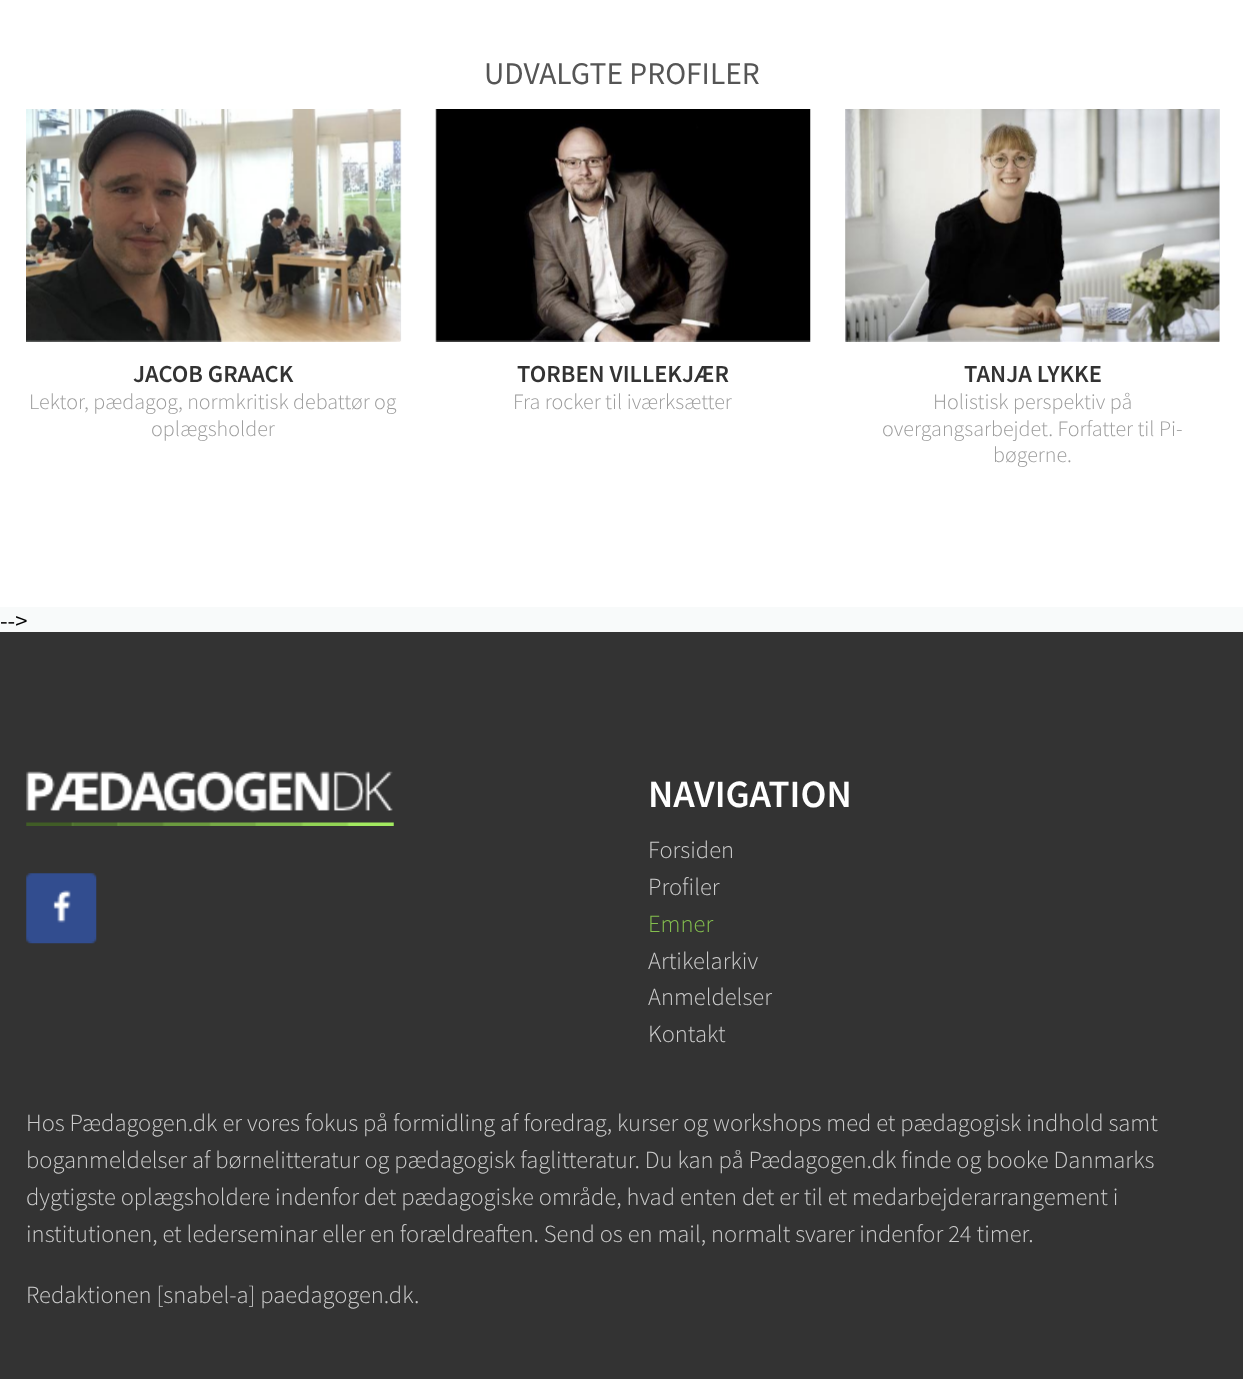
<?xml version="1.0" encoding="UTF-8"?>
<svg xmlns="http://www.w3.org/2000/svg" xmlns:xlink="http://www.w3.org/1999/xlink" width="1243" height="1379">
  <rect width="100%" height="100%" fill="#f8fafa" />
  <rect width="1243" height="607" fill="#ffffff" />
  <rect x="26" y="109" width="375" height="232" fill="#e1e5e8" />
  <image x="26" y="109" width="376" height="233" xlink:href="image1.png" />
  <image x="435" y="109" width="376" height="233" xlink:href="image2.png" />
  <rect x="845" y="109" width="375" height="232" fill="#e1e5e8" />
  <image x="845" y="109" width="375" height="233" xlink:href="image3.png" />
  <rect y="632" width="1243" height="747" fill="#333333" />
  <image x="26" y="771" width="368" height="55" xlink:href="image4.png" />
  <image x="26" y="873" width="71" height="71" xlink:href="image5.png" />
  <text x="484" y="84" style="font-family: Source Sans Pro; font-size: 31.5px; fill: #555555">UDVALGTE PROFILER</text>
  <text x="133" y="382" style="font-family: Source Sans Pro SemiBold; font-size: 24.5px; font-weight: 600; fill: #333333">JACOB GRAACK</text>
  <text x="29" y="409" style="font-family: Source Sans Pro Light; font-size: 22px; font-weight: 300; fill: #9b9b9b">Lektor, pædagog, normkritisk debattør og</text>
  <text x="151" y="436" style="font-family: Source Sans Pro Light; font-size: 22px; font-weight: 300; fill: #9b9b9b">oplægsholder</text>
  <text x="517" y="382" style="font-family: Source Sans Pro SemiBold; font-size: 24.5px; font-weight: 600; fill: #333333">TORBEN VILLEKJÆR</text>
  <text x="513" y="409" style="font-family: Source Sans Pro Light; font-size: 22px; font-weight: 300; fill: #9b9b9b">Fra rocker til iværksætter</text>
  <text x="964" y="382" style="font-family: Source Sans Pro SemiBold; font-size: 24.5px; font-weight: 600; fill: #333333">TANJA LYKKE</text>
  <text x="933" y="409" style="font-family: Source Sans Pro Light; font-size: 22px; font-weight: 300; fill: #9b9b9b">Holistisk perspektiv på</text>
  <text x="882" y="436" style="font-family: Source Sans Pro Light; font-size: 22px; font-weight: 300; fill: #9b9b9b">overgangsarbejdet. Forfatter til Pi-</text>
  <text x="993" y="462" style="font-family: Source Sans Pro Light; font-size: 22px; font-weight: 300; fill: #9b9b9b">bøgerne.</text>
  <text x="0" y="629" style="font-family: Source Sans Pro; font-size: 24.5px; fill: #000000">--&gt;</text>
  <text x="648" y="807" style="font-family: Source Sans Pro SemiBold; font-size: 38.5px; font-weight: 600; fill: #ffffff">NAVIGATION</text>
  <text x="648" y="858" style="font-family: Source Sans Pro Light; font-size: 24.5px; font-weight: 300; fill: #cccccc">Forsiden</text>
  <text x="648" y="895" style="font-family: Source Sans Pro Light; font-size: 24.5px; font-weight: 300; fill: #cccccc">Profiler</text>
  <text x="648" y="932" style="font-family: Source Sans Pro Light; font-size: 24.5px; font-weight: 300; fill: #84bf4e">Emner</text>
  <text x="648" y="969" style="font-family: Source Sans Pro Light; font-size: 24.5px; font-weight: 300; fill: #cccccc">Artikelarkiv</text>
  <text x="648" y="1005" style="font-family: Source Sans Pro Light; font-size: 24.5px; font-weight: 300; fill: #cccccc">Anmeldelser</text>
  <text x="648" y="1042" style="font-family: Source Sans Pro Light; font-size: 24.5px; font-weight: 300; fill: #cccccc">Kontakt</text>
  <text x="26" y="1131" style="font-family: Source Sans Pro Light; font-size: 24.5px; font-weight: 300; fill: #cccccc">Hos Pædagogen.dk er vores fokus på formidling af foredrag, kurser og workshops med et pædagogisk indhold samt</text>
  <text x="26" y="1168" style="font-family: Source Sans Pro Light; font-size: 24.5px; font-weight: 300; fill: #cccccc">boganmeldelser af børnelitteratur og pædagogisk faglitteratur. Du kan på Pædagogen.dk finde og booke Danmarks</text>
  <text x="26" y="1205" style="font-family: Source Sans Pro Light; font-size: 24.5px; font-weight: 300; fill: #cccccc">dygtigste oplægsholdere indenfor det pædagogiske område, hvad enten det er til et medarbejderarrangement i</text>
  <text x="26" y="1242" style="font-family: Source Sans Pro Light; font-size: 24.5px; font-weight: 300; fill: #cccccc">institutionen, et lederseminar eller en forældreaften. Send os en mail, normalt svarer indenfor 24 timer.</text>
  <text x="26" y="1303" style="font-family: Source Sans Pro Light; font-size: 24.5px; font-weight: 300; fill: #cccccc">Redaktionen [snabel-a] paedagogen.dk.</text>
</svg>
